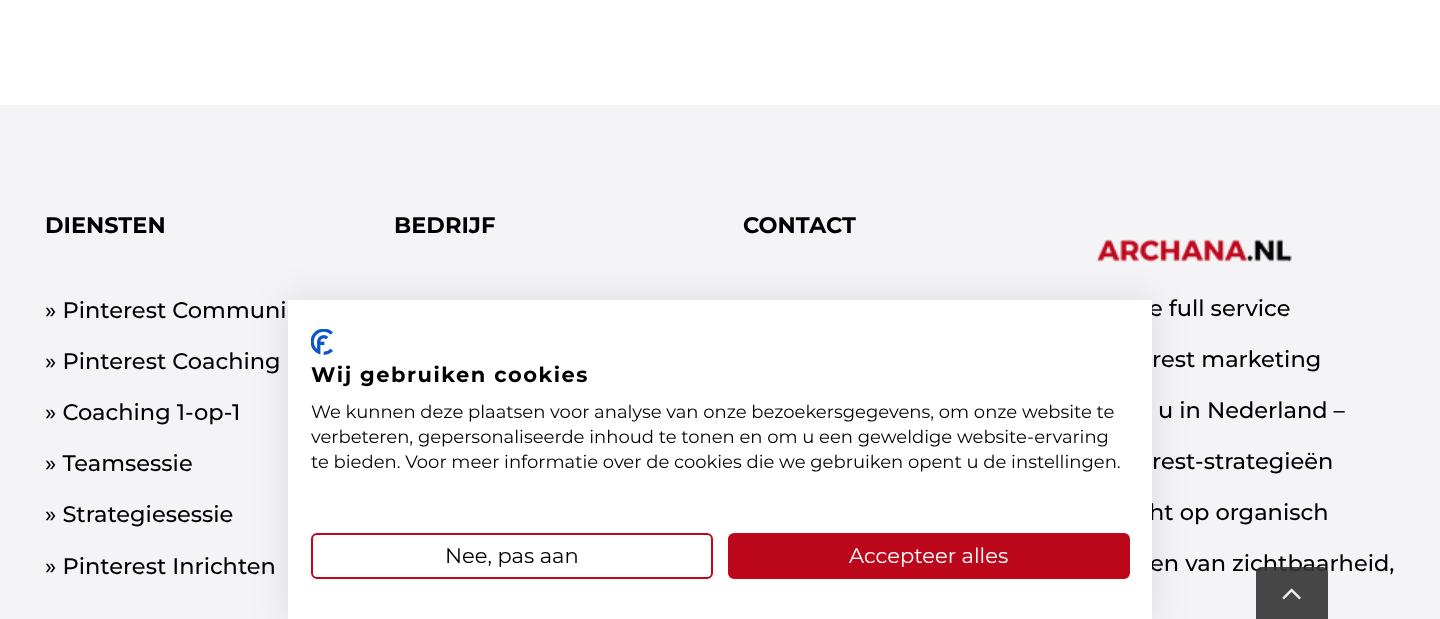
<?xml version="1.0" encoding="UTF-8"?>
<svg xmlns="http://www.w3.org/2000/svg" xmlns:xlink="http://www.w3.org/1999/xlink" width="1440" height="619">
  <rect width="100%" height="100%" fill="#ffffff" />
  <rect y="105" width="1440" height="514" fill="#f4f4f6" />
  <image x="1096" y="239" width="196" height="23" xlink:href="image1.png" />
  <rect x="288" y="300" width="864" height="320" fill="#000000" fill-opacity="0.1" filter="blur(18px)" />
  <text x="45" y="233" style="font-family: Montserrat; font-size: 22.5px; font-weight: bold; fill: #000000">DIENSTEN</text>
  <text x="45" y="318" style="font-family: Montserrat; font-size: 22.5px; font-weight: 500; fill: #000000">» Pinterest Communi</text>
  <text x="45" y="369" style="font-family: Montserrat; font-size: 22.5px; font-weight: 500; fill: #000000">» Pinterest Coaching</text>
  <text x="45" y="420" style="font-family: Montserrat; font-size: 22.5px; font-weight: 500; fill: #000000">» Coaching 1-op-1</text>
  <text x="45" y="471" style="font-family: Montserrat; font-size: 22.5px; font-weight: 500; fill: #000000">» Teamsessie</text>
  <text x="45" y="522" style="font-family: Montserrat; font-size: 22.5px; font-weight: 500; fill: #000000">» Strategiesessie</text>
  <text x="45" y="574" style="font-family: Montserrat; font-size: 22.5px; font-weight: 500; fill: #000000">» Pinterest Inrichten</text>
  <text x="394" y="233" style="font-family: Montserrat; font-size: 22.5px; font-weight: bold; fill: #000000">BEDRIJF</text>
  <text x="743" y="233" style="font-family: Montserrat; font-size: 22.5px; font-weight: bold; fill: #000000">CONTACT</text>
  <text x="1149" y="316" style="font-family: Montserrat; font-size: 22.5px; font-weight: 500; fill: #000000">e full service</text>
  <text x="1152" y="367" style="font-family: Montserrat; font-size: 22.5px; font-weight: 500; fill: #000000">rest marketing</text>
  <text x="1158" y="418" style="font-family: Montserrat; font-size: 22.5px; font-weight: 500; fill: #000000">u in Nederland –</text>
  <text x="1152" y="469" style="font-family: Montserrat; font-size: 22.5px; font-weight: 500; fill: #000000">rest-strategieën</text>
  <text x="1149" y="520" style="font-family: Montserrat; font-size: 22.5px; font-weight: 500; fill: #000000">ht op organisch</text>
  <text x="1150" y="571" style="font-family: Montserrat; font-size: 22.5px; font-weight: 500; fill: #000000">en van zichtbaarheid,</text>
  <rect x="288" y="300" width="864" height="319" fill="#ffffff" />
  <image x="311" y="329" width="22" height="26" xlink:href="image2.png" />
  <text x="311" y="382" style="font-family: Montserrat; font-size: 21px; font-weight: bold; letter-spacing: 1.5px; fill: #000000">Wij gebruiken cookies</text>
  <text x="311" y="418" style="font-family: Montserrat; font-size: 18px; fill: #000000">We kunnen deze plaatsen voor analyse van onze bezoekersgegevens, om onze website te</text>
  <text x="311" y="443" style="font-family: Montserrat; font-size: 18px; fill: #000000">verbeteren, gepersonaliseerde inhoud te tonen en om u een geweldige website-ervaring</text>
  <text x="311" y="468" style="font-family: Montserrat; font-size: 18px; fill: #000000">te bieden. Voor meer informatie over de cookies die we gebruiken opent u de instellingen.</text>
  <rect x="312" y="534" width="400" height="44" rx="5" fill="none" stroke="#bd081c" stroke-width="2" />
  <text x="445" y="563" style="font-family: Montserrat; font-size: 21px; fill: #000000">Nee, pas aan</text>
  <rect x="729" y="534" width="400" height="44" rx="5" fill="#bd081c" stroke="#bd081c" stroke-width="2" />
  <text x="849" y="563" style="font-family: Montserrat; font-size: 21px; fill: #ffffff">Accepteer alles</text>
  <path d="M 1262 567 h 60 c 3.5 0 6 2.5 6 6 v 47 h -72 v -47 c 0 -3.5 2.5 -6 6 -6 z" fill="#333333" fill-opacity="0.9" />
  <image x="1282" y="588" width="19" height="12" xlink:href="image3.png" />
</svg>
